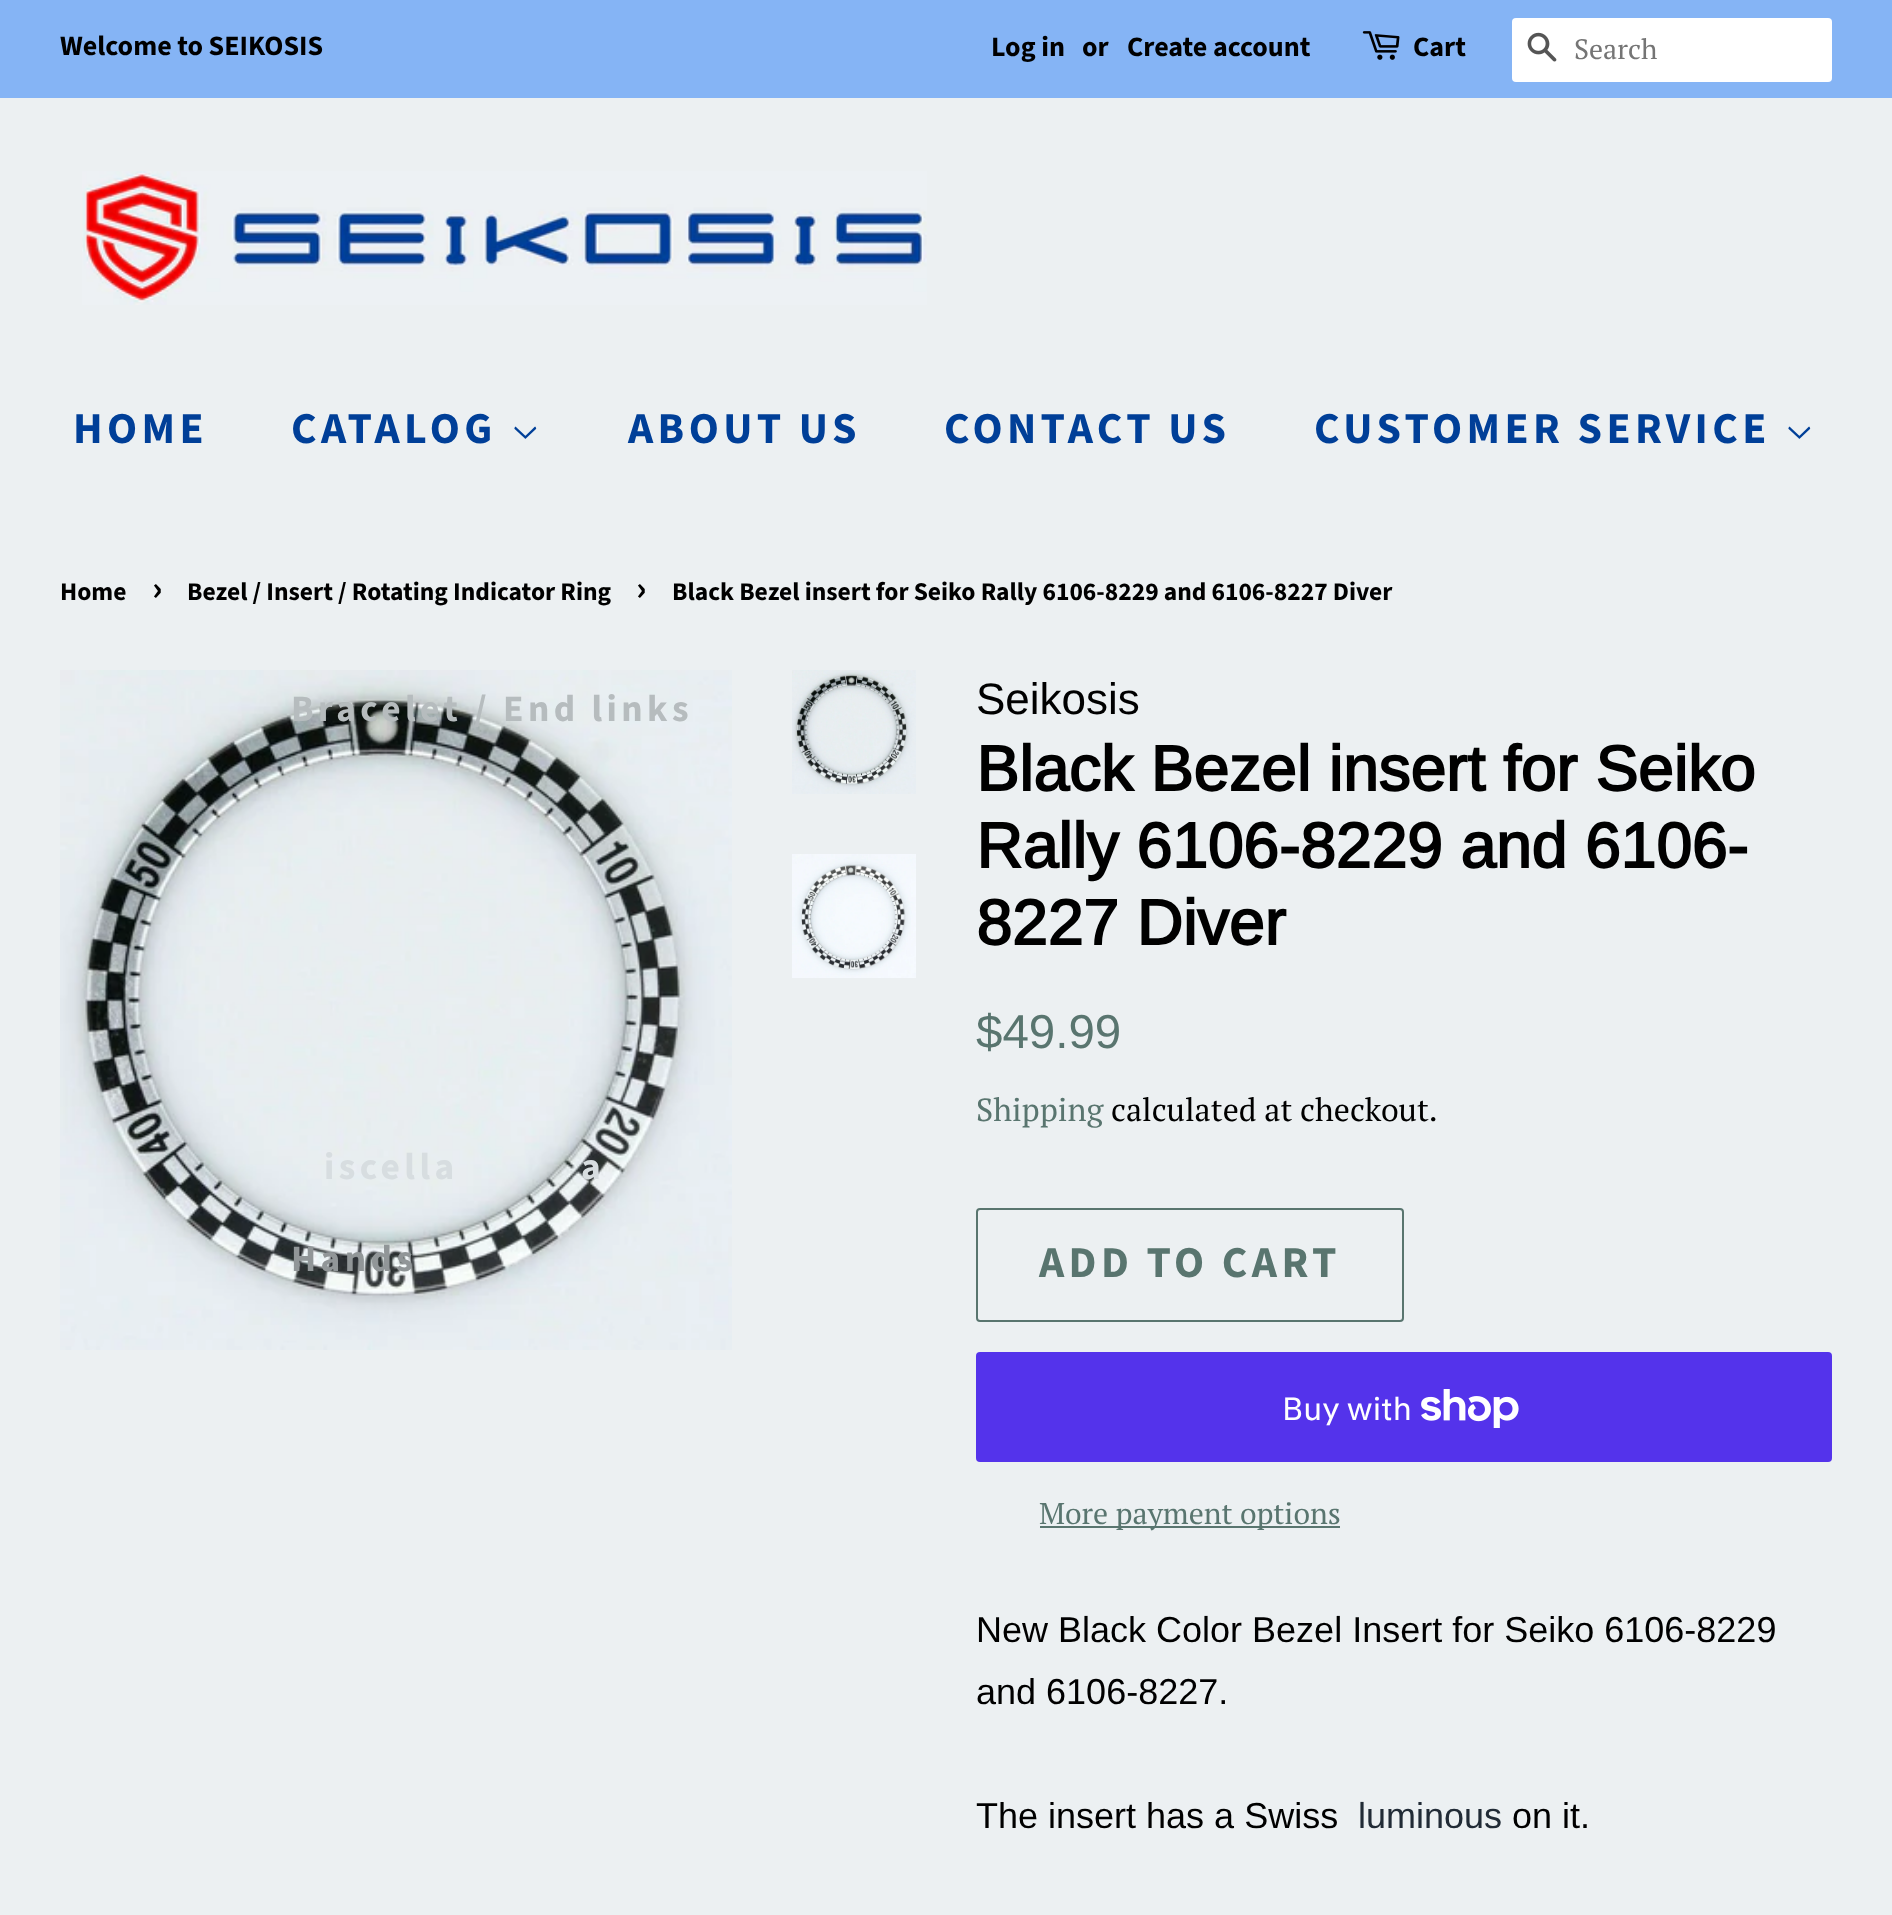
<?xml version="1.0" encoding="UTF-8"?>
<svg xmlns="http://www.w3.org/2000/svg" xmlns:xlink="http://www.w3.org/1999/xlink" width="1892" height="1915">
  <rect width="100%" height="100%" fill="#ecf0f2" />
  <rect width="1892" height="98" fill="#85b4f5" />
  <image x="1362" y="31" width="38" height="29" xlink:href="image1.png" />
  <rect x="1512" y="18" width="320" height="64" rx="4" fill="#ffffff" />
  <image x="1527" y="32" width="30" height="30" xlink:href="image2.png" />
  <image x="82" y="171" width="845" height="134" xlink:href="image3.png" />
  <image x="514" y="426" width="23" height="13" xlink:href="image4.png" />
  <image x="1788" y="426" width="23" height="13" xlink:href="image4.png" />
  <image x="60" y="670" width="672" height="680" xlink:href="image5.png" />
  <image x="792" y="670" width="124" height="124" xlink:href="image6.png" />
  <image x="792" y="854" width="124" height="124" xlink:href="image7.png" />
  <rect x="977" y="1209" width="426" height="112" rx="3" fill="none" stroke="#59756f" stroke-width="2" />
  <rect x="976" y="1352" width="856" height="110" rx="4" fill="#5433eb" />
  <image x="1421" y="1389" width="98" height="39" xlink:href="image8.png" />
  <rect x="1040" y="1526" width="300" height="2" fill="#59756f" />
  <text x="60" y="55" style="font-family: Source Sans Pro; font-size: 28px; font-weight: bold; fill: #000000">Welcome to SEIKOSIS</text>
  <text x="991" y="56" style="font-family: Source Sans Pro; font-size: 28px; font-weight: bold; fill: #000000">Log in</text>
  <text x="1082" y="56" style="font-family: Source Sans Pro; font-size: 28px; font-weight: bold; fill: #000000">or</text>
  <text x="1127" y="56" style="font-family: Source Sans Pro; font-size: 28px; font-weight: bold; fill: #000000">Create account</text>
  <text x="1413" y="56" style="font-family: Source Sans Pro; font-size: 28px; font-weight: bold; fill: #000000">Cart</text>
  <text x="1574" y="59" style="font-family: PT Serif; font-size: 28px; fill: #757575">Search</text>
  <text x="73" y="443" style="font-family: Source Sans Pro; font-size: 44px; font-weight: bold; letter-spacing: 4.4px; fill: #003f98">HOME</text>
  <text x="291" y="443" style="font-family: Source Sans Pro; font-size: 44px; font-weight: bold; letter-spacing: 4.4px; fill: #003f98">CATALOG</text>
  <text x="291" y="721" style="font-family: Source Sans Pro; font-size: 37.4px; font-weight: bold; letter-spacing: 4.4px; fill: #b6bcbe">Bracelet / End links</text>
  <text x="324" y="1179" style="font-family: Source Sans Pro; font-size: 37.4px; font-weight: bold; letter-spacing: 4.4px; fill: #d7dde0">iscella</text>
  <text x="581" y="1179" style="font-family: Source Sans Pro; font-size: 37.4px; font-weight: bold; letter-spacing: 4.4px; fill: #d7dde0">a</text>
  <text x="291" y="1271" style="font-family: Source Sans Pro; font-size: 37.4px; font-weight: bold; letter-spacing: 4.4px; fill: #919698">Hands</text>
  <text x="628" y="443" style="font-family: Source Sans Pro; font-size: 44px; font-weight: bold; letter-spacing: 4.4px; fill: #003f98">ABOUT US</text>
  <text x="944" y="443" style="font-family: Source Sans Pro; font-size: 44px; font-weight: bold; letter-spacing: 4.4px; fill: #003f98">CONTACT US</text>
  <text x="1314" y="443" style="font-family: Source Sans Pro; font-size: 44px; font-weight: bold; letter-spacing: 4.4px; fill: #003f98">CUSTOMER SERVICE</text>
  <text x="60" y="600" style="font-family: Source Sans Pro; font-size: 25.5px; font-weight: bold; fill: #000000">Home</text>
  <text x="152" y="600" style="font-family: Source Sans Pro; font-size: 36px; font-weight: bold; fill: #000000">›</text>
  <text x="187" y="600" style="font-family: Source Sans Pro; font-size: 25.5px; font-weight: bold; fill: #000000">Bezel / Insert / Rotating Indicator Ring</text>
  <text x="636" y="600" style="font-family: Source Sans Pro; font-size: 36px; font-weight: bold; fill: #000000">›</text>
  <text x="672" y="600" style="font-family: Source Sans Pro; font-size: 25.5px; font-weight: bold; fill: #000000">Black Bezel insert for Seiko Rally 6106-8229 and 6106-8227 Diver</text>
  <text x="976" y="714" style="font-family: Arimo; font-size: 44px; fill: #000000">Seikosis</text>
  <text x="976" y="791" style="font-family: Arimo; font-size: 64px; font-weight: bold; fill: #000000">Black Bezel insert for Seiko</text>
  <text x="976" y="868" style="font-family: Arimo; font-size: 64px; font-weight: bold; fill: #000000">Rally 6106-8229 and 6106-</text>
  <text x="976" y="945" style="font-family: Arimo; font-size: 64px; font-weight: bold; fill: #000000">8227 Diver</text>
  <text x="976" y="1048" style="font-family: Arimo; font-size: 47.5px; fill: #59756f">$49.99</text>
  <text x="976" y="1121" style="font-family: PT Serif; font-size: 32px; fill: #59756f">Shipping</text>
  <text x="1111" y="1121" style="font-family: PT Serif; font-size: 32px; fill: #000000">calculated at checkout.</text>
  <text x="1039" y="1277" style="font-family: Source Sans Pro; font-size: 44px; font-weight: bold; letter-spacing: 4.4px; fill: #59756f">ADD TO CART</text>
  <text x="1282" y="1420" style="font-family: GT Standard; font-size: 32px; fill: #ffffff">Buy with</text>
  <text x="1039" y="1524" style="font-family: PT Serif; font-size: 30px; fill: #59756f">More payment options</text>
  <text x="976" y="1642" style="font-family: Liberation Sans; font-size: 36px; fill: #000000">New Black Color Bezel Insert for Seiko 6106-8229</text>
  <text x="976" y="1704" style="font-family: Liberation Sans; font-size: 36px; fill: #000000">and 6106-8227.</text>
  <text x="976" y="1828" style="font-family: Liberation Sans; font-size: 36px; fill: #000000">The insert has a Swiss</text>
  <text x="1358" y="1828" style="font-family: Liberation Sans; font-size: 36px; fill: #212b36">luminous</text>
  <text x="1512" y="1828" style="font-family: Liberation Sans; font-size: 36px; fill: #000000">on it.</text>
</svg>
